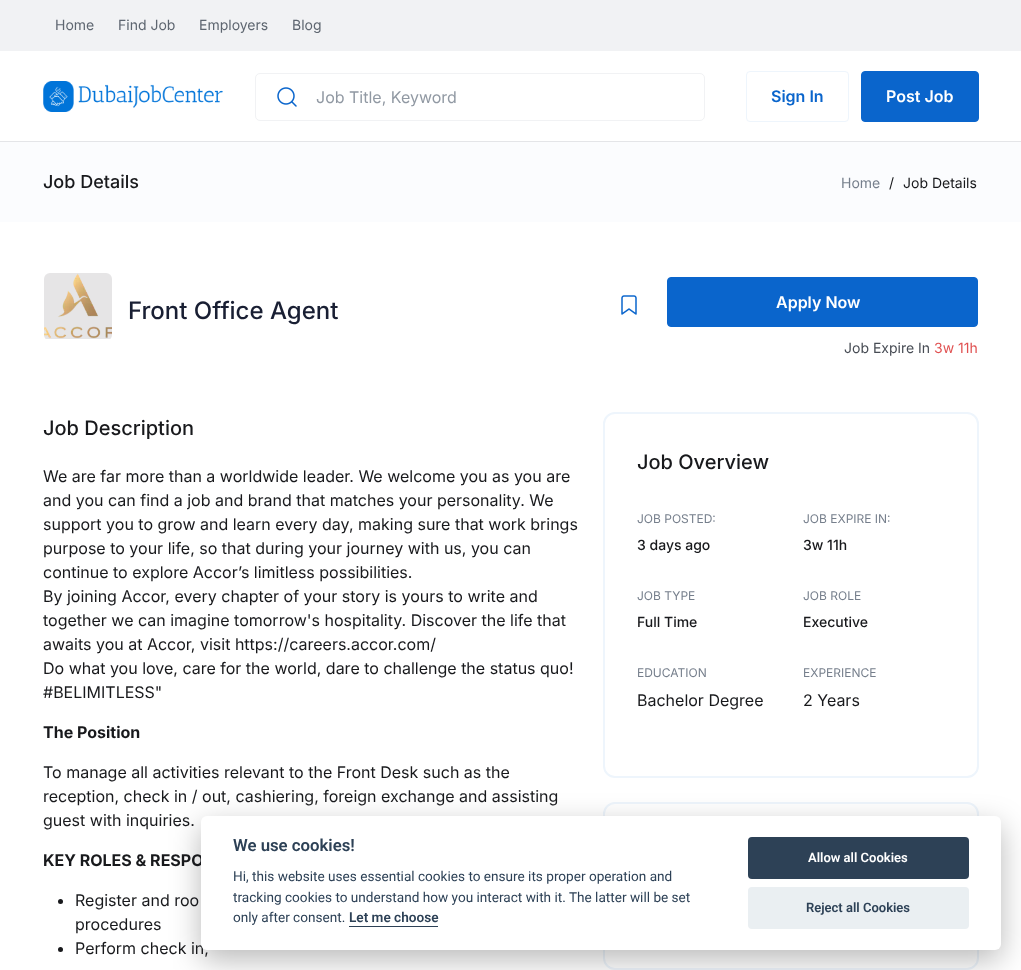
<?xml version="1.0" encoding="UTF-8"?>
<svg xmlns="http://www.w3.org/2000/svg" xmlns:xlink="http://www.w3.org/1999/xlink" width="1021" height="970">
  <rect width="100%" height="100%" fill="#ffffff" />
  <rect width="1021" height="51" fill="#f1f2f4" />
  <rect y="141" width="1021" height="1" fill="#e4e5e8" />
  <image x="43" y="81" width="180" height="31" xlink:href="image1.png" />
  <rect x="255.5" y="73.5" width="449" height="47" rx="4.5" fill="none" stroke="#f1f2f4" />
  <image x="277" y="87" width="20" height="20" xlink:href="image2.png" />
  <rect x="746.5" y="71.5" width="102" height="50" rx="3.5" fill="none" stroke="#eef5fc" />
  <rect x="861.5" y="71.5" width="117" height="50" rx="3.5" fill="#0a65cc" stroke="#0a65cc" />
  <rect y="142" width="1021" height="80" fill="#fbfcfe" />
  <image x="44" y="273" width="68" height="66" xlink:href="image3.png" />
  <image x="621" y="295" width="16" height="20" xlink:href="image4.png" />
  <rect x="667.5" y="277.5" width="310" height="49" rx="3.5" fill="#0a65cc" stroke="#0a65cc" />
  <circle cx="60.5" cy="901.5" r="2.5" fill="#18191c" />
  <circle cx="60.5" cy="949.5" r="2.5" fill="#18191c" />
  <rect x="604" y="413" width="374" height="364" rx="11" fill="none" stroke="#eef5fc" stroke-width="2" />
  <rect x="604" y="803" width="374" height="166" rx="11" fill="none" stroke="#eef5fc" stroke-width="2" />
  <rect x="201" y="826" width="800" height="134" rx="6" fill="#020203" fill-opacity="0.28" filter="blur(15px)" />
  <text x="55" y="30" style="font-family: Inter; font-size: 14px; fill: #5e6670">Home</text>
  <text x="118" y="30" style="font-family: Inter; font-size: 14px; fill: #5e6670">Find Job</text>
  <text x="199" y="30" style="font-family: Inter; font-size: 14px; fill: #5e6670">Employers</text>
  <text x="292" y="30" style="font-family: Inter; font-size: 14px; fill: #5e6670">Blog</text>
  <text x="316" y="103" style="font-family: Inter; font-size: 16px; fill: #9199a3">Job Title, Keyword</text>
  <text x="771" y="102" style="font-family: Inter; font-size: 16px; font-weight: 600; fill: #0a65cc">Sign In</text>
  <text x="886" y="102" style="font-family: Inter; font-size: 16px; font-weight: 600; fill: #ffffff">Post Job</text>
  <text x="43" y="188" style="font-family: Inter; font-size: 18px; font-weight: 500; fill: #18191c">Job Details</text>
  <text x="841" y="188" style="font-family: Inter; font-size: 14px; fill: #767f8c">Home</text>
  <text x="889" y="188" style="font-family: Inter; font-size: 14px; fill: #18191c">/</text>
  <text x="903" y="188" style="font-family: Inter; font-size: 14px; fill: #18191c">Job Details</text>
  <text x="128" y="319" style="font-family: Inter; font-size: 24px; font-weight: 500; fill: #191f33">Front Office Agent</text>
  <text x="776" y="308" style="font-family: Inter; font-size: 16px; font-weight: 600; fill: #ffffff">Apply Now</text>
  <text x="844" y="353" style="font-family: Inter; font-size: 14px; fill: #474c54">Job Expire In</text>
  <text x="934" y="353" style="font-family: Inter; font-size: 14px; fill: #e05151">3w 11h</text>
  <text x="43" y="435" style="font-family: Inter; font-size: 20px; font-weight: 500; fill: #18191c">Job Description</text>
  <text x="43" y="482" style="font-family: Inter; font-size: 16px; fill: #18191c">We are far more than a worldwide leader. We welcome you as you are</text>
  <text x="43" y="506" style="font-family: Inter; font-size: 16px; fill: #18191c">and you can find a job and brand that matches your personality. We</text>
  <text x="43" y="530" style="font-family: Inter; font-size: 16px; fill: #18191c">support you to grow and learn every day, making sure that work brings</text>
  <text x="43" y="554" style="font-family: Inter; font-size: 16px; fill: #18191c">purpose to your life, so that during your journey with us, you can</text>
  <text x="43" y="578" style="font-family: Inter; font-size: 16px; fill: #18191c">continue to explore Accor’s limitless possibilities.</text>
  <text x="43" y="602" style="font-family: Inter; font-size: 16px; fill: #18191c">By joining Accor, every chapter of your story is yours to write and</text>
  <text x="43" y="626" style="font-family: Inter; font-size: 16px; fill: #18191c">together we can imagine tomorrow's hospitality. Discover the life that</text>
  <text x="43" y="650" style="font-family: Inter; font-size: 16px; fill: #18191c">awaits you at Accor, visit https://careers.accor.com/</text>
  <text x="43" y="674" style="font-family: Inter; font-size: 16px; fill: #18191c">Do what you love, care for the world, dare to challenge the status quo!</text>
  <text x="43" y="698" style="font-family: Inter; font-size: 16px; fill: #18191c">#BELIMITLESS"</text>
  <text x="43" y="738" style="font-family: Inter; font-size: 16px; font-weight: bold; fill: #18191c">The Position</text>
  <text x="43" y="778" style="font-family: Inter; font-size: 16px; fill: #18191c">To manage all activities relevant to the Front Desk such as the</text>
  <text x="43" y="802" style="font-family: Inter; font-size: 16px; fill: #18191c">reception, check in / out, cashiering, foreign exchange and assisting</text>
  <text x="43" y="826" style="font-family: Inter; font-size: 16px; fill: #18191c">guest with inquiries.</text>
  <text x="43" y="866" style="font-family: Inter; font-size: 16px; font-weight: bold; fill: #18191c">KEY ROLES &amp; RESPO</text>
  <text x="75" y="906" style="font-family: Inter; font-size: 16px; fill: #18191c">Register and roo</text>
  <text x="75" y="930" style="font-family: Inter; font-size: 16px; fill: #18191c">procedures</text>
  <text x="75" y="954" style="font-family: Inter; font-size: 16px; fill: #18191c">Perform check in,</text>
  <text x="637" y="469" style="font-family: Inter; font-size: 20px; font-weight: 500; fill: #18191c">Job Overview</text>
  <text x="637" y="523" style="font-family: Inter; font-size: 12px; fill: #767f8c">JOB POSTED:</text>
  <text x="637" y="550" style="font-family: Inter; font-size: 14px; font-weight: 500; fill: #18191c">3 days ago</text>
  <text x="803" y="523" style="font-family: Inter; font-size: 12px; fill: #767f8c">JOB EXPIRE IN:</text>
  <text x="803" y="550" style="font-family: Inter; font-size: 14px; font-weight: 500; fill: #18191c">3w 11h</text>
  <text x="637" y="600" style="font-family: Inter; font-size: 12px; fill: #767f8c">JOB TYPE</text>
  <text x="637" y="627" style="font-family: Inter; font-size: 14px; font-weight: 500; fill: #18191c">Full Time</text>
  <text x="803" y="600" style="font-family: Inter; font-size: 12px; fill: #767f8c">JOB ROLE</text>
  <text x="803" y="627" style="font-family: Inter; font-size: 14px; font-weight: 500; fill: #18191c">Executive</text>
  <text x="637" y="677" style="font-family: Inter; font-size: 12px; fill: #767f8c">EDUCATION</text>
  <text x="637" y="706" style="font-family: Inter; font-size: 16px; fill: #18191c">Bachelor Degree</text>
  <text x="803" y="677" style="font-family: Inter; font-size: 12px; fill: #767f8c">EXPERIENCE</text>
  <text x="803" y="706" style="font-family: Inter; font-size: 16px; fill: #18191c">2 Years</text>
  <rect x="201" y="816" width="800" height="134" rx="6" fill="#ffffff" />
  <text x="233" y="851" style="font-family: Roboto; font-size: 16.75px; font-weight: 600; fill: #2d4156">We use cookies!</text>
  <text x="233" y="881" style="font-family: Roboto; font-size: 13.6px; fill: #2d4156">Hi, this website uses essential cookies to ensure its proper operation and</text>
  <text x="233" y="902" style="font-family: Roboto; font-size: 13.6px; fill: #2d4156">tracking cookies to understand how you interact with it. The latter will be set</text>
  <text x="233" y="922" style="font-family: Roboto; font-size: 13.6px; fill: #2d4156">only after consent.</text>
  <text x="349" y="922" style="font-family: Roboto; font-size: 13.6px; font-weight: 600; fill: #2d4156">Let me choose</text>
  <rect x="349" y="926" width="89" height="1" fill="#2d4156" />
  <rect x="748" y="837" width="221" height="42" rx="4" fill="#2d4156" />
  <text x="808" y="862" style="font-family: Roboto; font-size: 13px; font-weight: 600; fill: #ffffff">Allow all Cookies</text>
  <rect x="748" y="887" width="221" height="42" rx="4" fill="#eaeff2" />
  <text x="806" y="912" style="font-family: Roboto; font-size: 13px; font-weight: 600; fill: #2d4156">Reject all Cookies</text>
</svg>
